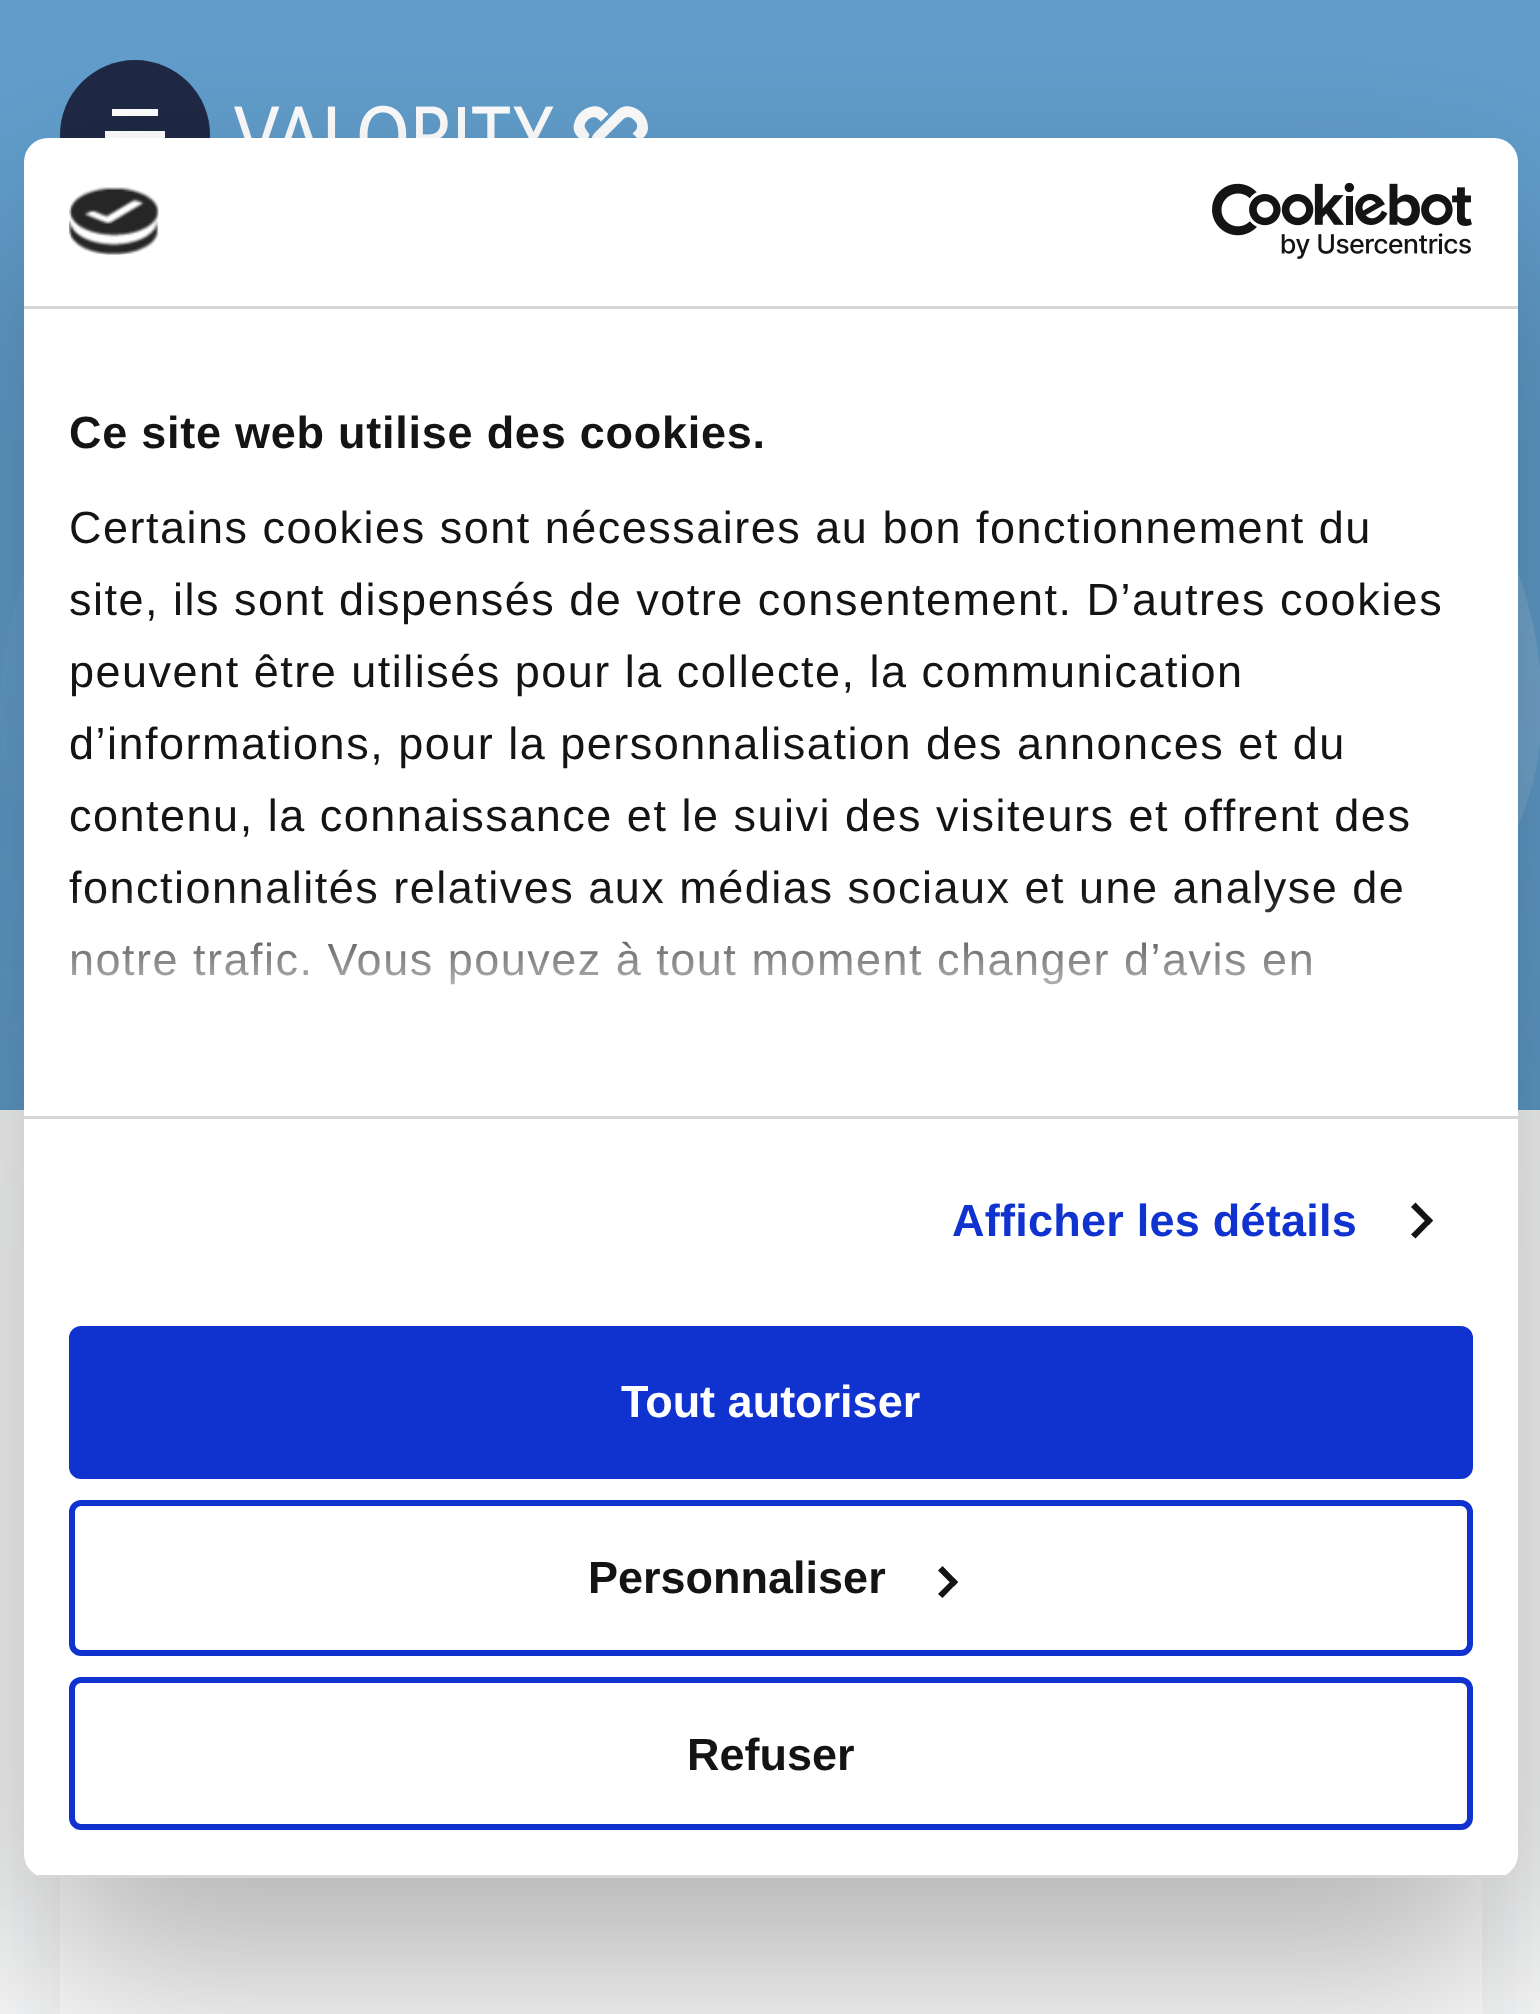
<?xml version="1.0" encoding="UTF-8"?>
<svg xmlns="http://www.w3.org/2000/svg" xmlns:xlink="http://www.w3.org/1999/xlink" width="1540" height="2014">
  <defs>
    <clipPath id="clip1"><rect x="24" y="138" width="1494" height="1740" rx="24" /></clipPath>
    <linearGradient id="g1" gradientUnits="userSpaceOnUse" x1="752" y1="1116" x2="752" y2="891"><stop offset="0" stop-color="#ffffff" /><stop offset="0.5" stop-color="#ffffff" stop-opacity="0.8" /><stop offset="1" stop-color="#ffffff" stop-opacity="0" /></linearGradient>
  </defs>
  <rect width="100%" height="100%" fill="#ffffff" />
  <rect width="1540" height="1110" fill="#629ecc" />
  <image x="0" y="573" width="1540" height="252" xlink:href="image1.png" />
  <rect x="60" y="1017" width="1422" height="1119" rx="12" fill="#406275" fill-opacity="0.1" filter="blur(150px)" />
  <rect x="60" y="1878" width="1422" height="136" fill="#ffffff" />
  <circle cx="135" cy="135" r="75" fill="#1f2945" />
  <path d="M 112 161 v -7 h 46 v 7 z m -7 -22 v -8 h 60 v 8 z m 7 -23 v -7 h 46 v 7 z" fill="#ffffff" />
  <image x="234" y="105" width="414" height="33" xlink:href="image2.png" />
  <rect x="24" y="234" width="1494" height="1740" rx="24" fill="#000000" fill-opacity="0.3" filter="blur(102px)" />
  <rect x="24" y="138" width="1494" height="1740" rx="24" fill="#ffffff" />
  <rect x="24" y="306" width="1494" height="3" fill="#d6d6d6" />
  <image x="69" y="187" width="90" height="68" xlink:href="image3.png" />
  <image x="1212" y="183" width="260" height="76" xlink:href="image4.png" />
  <rect x="24" y="1116" width="1494" height="3" fill="#d6d6d6" />
  <path d="M 1415.5 1202.5 l 17.5 18 l -4 4.5 l -18 -18 z" fill="#141414" />
  <path d="M 1429 1216.5 l 4 4 l -17.5 18 l -4.5 -4 z" fill="#141414" />
  <g clip-path="url(#clip1)">
    <rect x="36" y="1875" width="1470" height="3" fill="#d6d6d6" />
  </g>
  <rect x="72" y="1329" width="1398" height="147" rx="9" fill="#1032cf" stroke="#1032cf" stroke-width="6" />
  <rect x="72" y="1503" width="1398" height="150" rx="9" fill="none" stroke="#1032cf" stroke-width="6" />
  <path d="M 942.5 1566 l 15.5 16 l -4 4.5 l -16 -16 z" fill="#141414" />
  <path d="M 954 1578 l 4 4 l -15.5 16 l -4.5 -4 z" fill="#141414" />
  <rect x="72" y="1680" width="1398" height="147" rx="9" fill="none" stroke="#1032cf" stroke-width="6" />
  <text x="69" y="448" style="font-family: Liberation Sans; font-size: 45px; font-weight: bold; letter-spacing: 0.75px; fill: #141414">Ce site web utilise des cookies.</text>
  <text x="69" y="543" style="font-family: Liberation Sans; font-size: 45px; letter-spacing: 1.5px; fill: #141414">Certains cookies sont nécessaires au bon fonctionnement du</text>
  <text x="69" y="615" style="font-family: Liberation Sans; font-size: 45px; letter-spacing: 1.5px; fill: #141414">site, ils sont dispensés de votre consentement. D’autres cookies</text>
  <text x="69" y="687" style="font-family: Liberation Sans; font-size: 45px; letter-spacing: 1.5px; fill: #141414">peuvent être utilisés pour la collecte, la communication</text>
  <text x="69" y="759" style="font-family: Liberation Sans; font-size: 45px; letter-spacing: 1.5px; fill: #141414">d’informations, pour la personnalisation des annonces et du</text>
  <text x="69" y="831" style="font-family: Liberation Sans; font-size: 45px; letter-spacing: 1.5px; fill: #141414">contenu, la connaissance et le suivi des visiteurs et offrent des</text>
  <text x="69" y="903" style="font-family: Liberation Sans; font-size: 45px; letter-spacing: 1.5px; fill: #141414">fonctionnalités relatives aux médias sociaux et une analyse de</text>
  <text x="69" y="975" style="font-family: Liberation Sans; font-size: 45px; letter-spacing: 1.5px; fill: #141414">notre trafic. Vous pouvez à tout moment changer d’avis en</text>
  <rect x="72" y="894" width="1329" height="91" fill="url(#g1)" />
  <text x="952" y="1236" style="font-family: Liberation Sans; font-size: 45px; font-weight: bold; letter-spacing: 0.25px; fill: #1032cf">Afficher les détails</text>
  <text x="621" y="1417" style="font-family: Liberation Sans; font-size: 45px; font-weight: bold; fill: #ffffff">Tout autoriser</text>
  <text x="588" y="1593" style="font-family: Liberation Sans; font-size: 45px; font-weight: bold; fill: #141414">Personnaliser</text>
  <text x="687" y="1770" style="font-family: Liberation Sans; font-size: 45px; font-weight: bold; fill: #141414">Refuser</text>
</svg>
